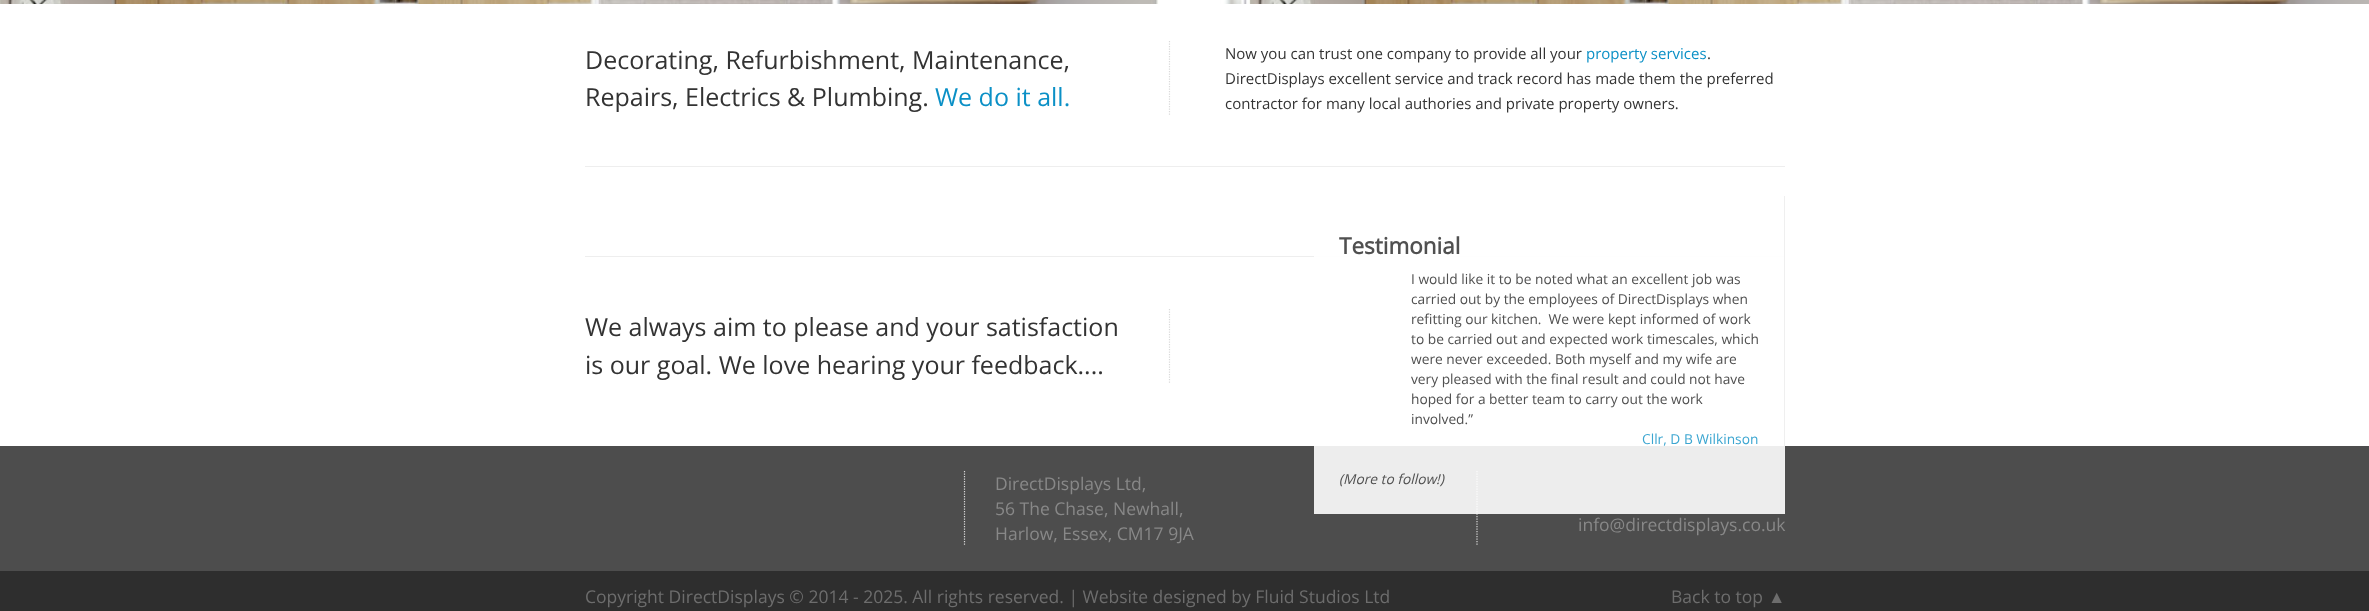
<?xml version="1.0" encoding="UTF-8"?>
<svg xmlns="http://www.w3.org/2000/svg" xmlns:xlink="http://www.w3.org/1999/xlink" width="2369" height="611">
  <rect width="100%" height="100%" fill="#ffffff" />
  <image x="0" y="0" width="2369" height="4" xlink:href="image1.png" />
  <path d="M 1169.5 41 v 75" fill="none" stroke="#d9d9d9" stroke-width="1.2" stroke-dasharray="1.25 1.25" />
  <rect x="585" y="166" width="1200" height="1" fill="#eeeeee" />
  <rect x="585" y="256" width="1200" height="1" fill="#eeeeee" />
  <rect y="446" width="2369" height="125" fill="#4d4d4d" />
  <path d="M 1477 471 v 75" fill="none" stroke="#d9d9d9" stroke-width="1.2" stroke-dasharray="1.25 1.25" />
  <rect x="1314" y="256" width="470" height="258" fill="#ffffff" fill-opacity="0.9" />
  <rect x="1784" y="196" width="1" height="318" fill="#efefef" />
  <path d="M 1169.5 309 v 75" fill="none" stroke="#d9d9d9" stroke-width="1.2" stroke-dasharray="1.25 1.25" />
  <path d="M 964.5 471 v 75" fill="none" stroke="#d9d9d9" stroke-width="1.2" stroke-dasharray="1.25 1.25" />
  <rect y="571" width="2369" height="40" fill="#2e2e2e" />
  <text x="585" y="69" style="font-family: Open Sans; font-size: 25px; fill: #333333">Decorating, Refurbishment, Maintenance,</text>
  <text x="585" y="106" style="font-family: Open Sans; font-size: 25px; fill: #333333">Repairs, Electrics &amp; Plumbing.</text>
  <text x="935" y="106" style="font-family: Open Sans; font-size: 25px; fill: #0b90c6">We do it all.</text>
  <text x="1225" y="59" style="font-family: Open Sans; font-size: 15px; fill: #333333">Now you can trust one company to provide all your</text>
  <text x="1586" y="59" style="font-family: Open Sans; font-size: 15px; fill: #0b90c6">property services</text>
  <text x="1707" y="59" style="font-family: Open Sans; font-size: 15px; fill: #333333">.</text>
  <text x="1225" y="84" style="font-family: Open Sans; font-size: 15px; fill: #333333">DirectDisplays excellent service and track record has made them the preferred</text>
  <text x="1225" y="109" style="font-family: Open Sans; font-size: 15px; fill: #333333">contractor for many local authories and private property owners.</text>
  <text x="1339" y="254" style="font-family: Open Sans; font-size: 22.5px; font-weight: bold; fill: #505050">Testimonial</text>
  <text x="1411" y="284" style="font-family: Open Sans; font-size: 13.75px; fill: #505050">I would like it to be noted what an excellent job was</text>
  <text x="1411" y="304" style="font-family: Open Sans; font-size: 13.75px; fill: #505050">carried out by the employees of DirectDisplays when</text>
  <text x="1411" y="324" style="font-family: Open Sans; font-size: 13.75px; fill: #505050" xml:space="preserve">refitting our kitchen.  We were kept informed of work</text>
  <text x="1411" y="344" style="font-family: Open Sans; font-size: 13.75px; fill: #505050">to be carried out and expected work timescales, which</text>
  <text x="1411" y="364" style="font-family: Open Sans; font-size: 13.75px; fill: #505050">were never exceeded. Both myself and my wife are</text>
  <text x="1411" y="384" style="font-family: Open Sans; font-size: 13.75px; fill: #505050">very pleased with the final result and could not have</text>
  <text x="1411" y="404" style="font-family: Open Sans; font-size: 13.75px; fill: #505050">hoped for a better team to carry out the work</text>
  <text x="1411" y="424" style="font-family: Open Sans; font-size: 13.75px; fill: #505050">involved.”</text>
  <text x="1642" y="444" style="font-family: Open Sans; font-size: 13.75px; fill: #3ca6d1">Cllr, D B Wilkinson</text>
  <text x="1339" y="484" style="font-family: Open Sans; font-size: 13.75px; font-style: italic; fill: #505050">(More to follow!)</text>
  <text x="585" y="336" style="font-family: Open Sans; font-size: 25px; fill: #333333">We always aim to please and your satisfaction</text>
  <text x="585" y="374" style="font-family: Open Sans; font-size: 25px; fill: #333333">is our goal. We love hearing your feedback....</text>
  <text x="995" y="490" style="font-family: Open Sans; font-size: 17.5px; fill: #888888">DirectDisplays Ltd,</text>
  <text x="995" y="515" style="font-family: Open Sans; font-size: 17.5px; fill: #888888">56 The Chase, Newhall,</text>
  <text x="995" y="540" style="font-family: Open Sans; font-size: 17.5px; fill: #888888">Harlow, Essex, CM17 9JA</text>
  <text x="1578" y="531" style="font-family: Open Sans; font-size: 17.5px; fill: #888888">info@directdisplays.co.uk</text>
  <text x="585" y="603" style="font-family: Open Sans; font-size: 17.5px; fill: #6d6d6d">Copyright DirectDisplays © 2014 - 2025. All rights reserved. | Website designed by Fluid Studios Ltd</text>
  <text x="1671" y="603" style="font-family: Open Sans; font-size: 17.5px; fill: #6d6d6d">Back to top</text>
  <text x="1768" y="603" style="font-family: Liberation Sans; font-size: 17.5px; fill: #6d6d6d">▲</text>
</svg>
